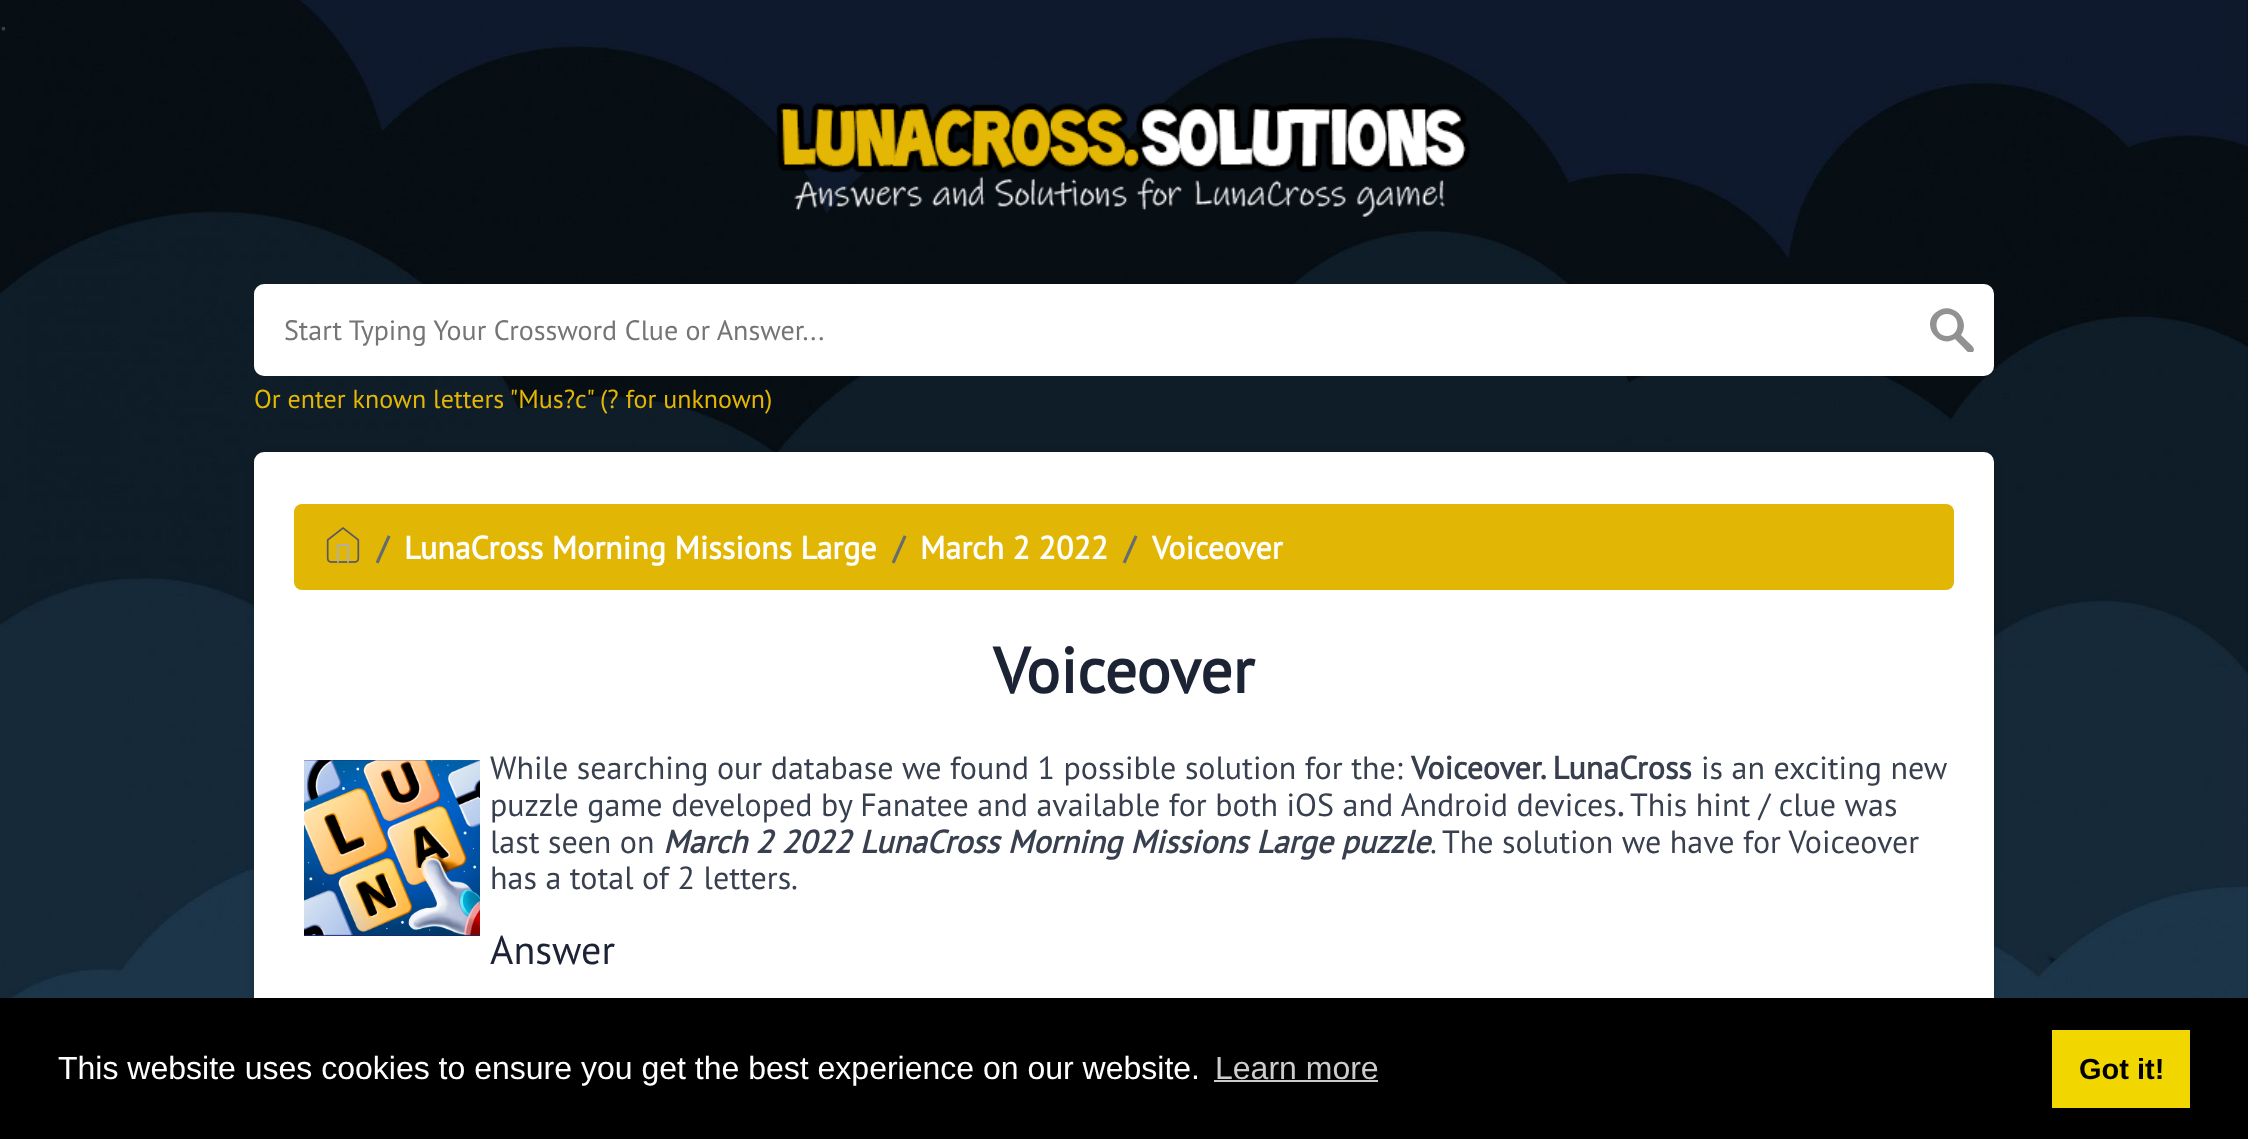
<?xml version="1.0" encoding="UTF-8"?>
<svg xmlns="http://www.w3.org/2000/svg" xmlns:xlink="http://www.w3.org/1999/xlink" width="2248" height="1139">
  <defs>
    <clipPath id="clip1"><rect x="1930" y="308" width="44" height="44" /></clipPath>
  </defs>
  <rect width="100%" height="100%" fill="#ffffff" />
  <image x="0" y="0" width="2248" height="998" xlink:href="image1.png" />
  <image x="776" y="103" width="695" height="114" xlink:href="image2.png" />
  <rect x="254" y="284" width="1740" height="92" rx="10" fill="#ffffff" />
  <g clip-path="url(#clip1)">
    <path d="M 1961 335 c 11 -17 -11 -36 -26 -22 c -14 13 4 36 20 26 l 9 9 c 2 2 5 7 9 4 c 3 -4 -2 -7 -4 -9 z m -14 1 c -14 0 -14 -22 0 -22 c 14 0 14 22 0 22 z" fill="#929292" />
  </g>
  <rect x="254" y="454" width="1740" height="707" rx="10" fill="#000000" fill-opacity="0.1" filter="blur(4px)" />
  <rect x="254" y="452" width="1740" height="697" rx="10" fill="#ffffff" />
  <rect x="294" y="504" width="1660" height="86" rx="8" fill="#e2b605" />
  <image x="326" y="527" width="34" height="36" xlink:href="image3.png" />
  <image x="304" y="760" width="176" height="176" xlink:href="image4.png" />
  <rect y="998" width="2248" height="141" fill="#000000" />
  <rect x="1214" y="1080" width="164" height="2" fill="#cccccc" />
  <rect x="2052" y="1030" width="138" height="78" fill="#f1d600" />
  <text x="0" y="30" style="font-family: PT Sans; font-size: 32px; fill: #383f4e">.</text>
  <text x="284" y="340" style="font-family: PT Sans; font-size: 28px; fill: #757575">Start Typing Your Crossword Clue or Answer...</text>
  <text x="254" y="408" style="font-family: PT Sans; font-size: 26px; fill: #e4b705">Or enter known letters "Mus?c" (? for unknown)</text>
  <text x="377" y="559" style="font-family: PT Sans; font-size: 32px; font-weight: bold; fill: #636c72">/</text>
  <text x="404" y="559" style="font-family: PT Sans; font-size: 32px; font-weight: bold; fill: #ffffff">LunaCross Morning Missions Large</text>
  <text x="893" y="559" style="font-family: PT Sans; font-size: 32px; font-weight: bold; fill: #636c72">/</text>
  <text x="920" y="559" style="font-family: PT Sans; font-size: 32px; font-weight: bold; fill: #ffffff">March 2 2022</text>
  <text x="1124" y="559" style="font-family: PT Sans; font-size: 32px; font-weight: bold; fill: #636c72">/</text>
  <text x="1152" y="559" style="font-family: PT Sans; font-size: 32px; font-weight: bold; fill: #ffffff">Voiceover</text>
  <text x="993" y="693" style="font-family: PT Sans; font-size: 64px; font-weight: bold; fill: #1c2334">Voiceover</text>
  <text x="490" y="779" style="font-family: PT Sans; font-size: 32px; fill: #383f4e">While searching our database we found 1 possible solution for the:</text>
  <text x="1411" y="779" style="font-family: PT Sans; font-size: 32px; font-weight: bold; fill: #383f4e">Voiceover. LunaCross</text>
  <text x="1701" y="779" style="font-family: PT Sans; font-size: 32px; fill: #383f4e">is an exciting new</text>
  <text x="490" y="816" style="font-family: PT Sans; font-size: 32px; fill: #383f4e">puzzle game developed by Fanatee and available for both iOS and Android devices</text>
  <text x="1617" y="816" style="font-family: PT Sans; font-size: 32px; font-weight: bold; fill: #383f4e">.</text>
  <text x="1630" y="816" style="font-family: PT Sans; font-size: 32px; fill: #383f4e">This hint / clue was</text>
  <text x="490" y="853" style="font-family: PT Sans; font-size: 32px; fill: #383f4e">last seen on</text>
  <text x="663" y="853" style="font-family: PT Sans; font-size: 32px; font-weight: bold; font-style: italic; fill: #383f4e">March 2 2022 LunaCross Morning Missions Large puzzle</text>
  <text x="1430" y="853" style="font-family: PT Sans; font-size: 32px; fill: #383f4e">. The solution we have for Voiceover</text>
  <text x="490" y="889" style="font-family: PT Sans; font-size: 32px; fill: #383f4e">has a total of 2 letters.</text>
  <text x="490" y="964" style="font-family: PT Sans; font-size: 40px; fill: #1c2334">Answer</text>
  <text x="58" y="1079" style="font-family: Liberation Sans; font-size: 32px; fill: #ffffff">This website uses cookies to ensure you get the best experience on our website.</text>
  <text x="1215" y="1079" style="font-family: Liberation Sans; font-size: 32px; fill: #cccccc">Learn more</text>
  <text x="2079" y="1079" style="font-family: Liberation Sans; font-size: 29px; font-weight: bold; fill: #000000">Got it!</text>
</svg>
